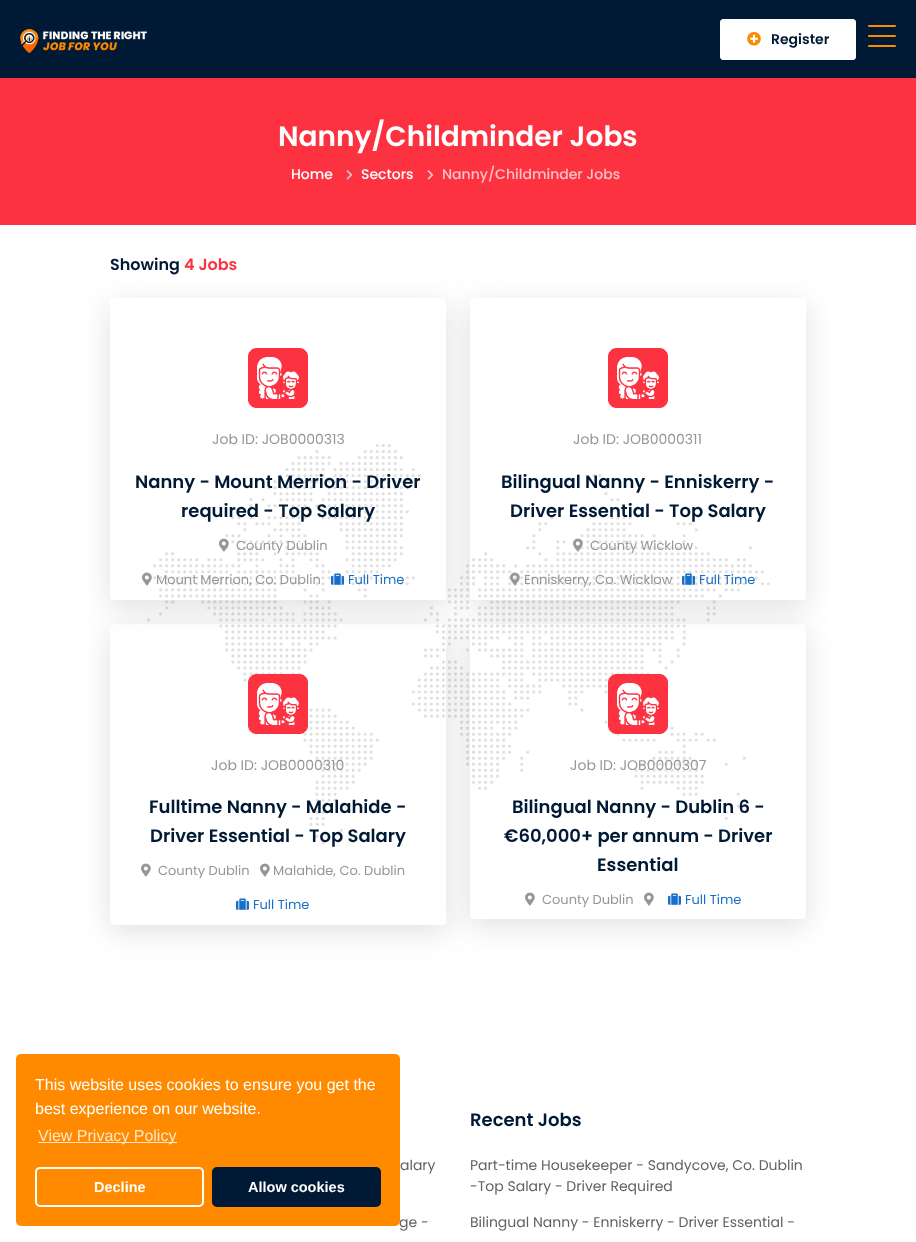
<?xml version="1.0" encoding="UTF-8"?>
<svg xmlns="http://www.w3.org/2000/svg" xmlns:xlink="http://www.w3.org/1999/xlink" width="916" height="1242">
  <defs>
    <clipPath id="clip1"><path d="M 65 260 h 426 v 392 h -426 z m 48 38 h 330 c 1.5 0 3 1.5 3 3 v 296 c 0 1.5 -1.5 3 -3 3 h -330 c -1.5 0 -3 -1.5 -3 -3 v -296 c 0 -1.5 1.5 -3 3 -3 z" clip-rule="evenodd" /></clipPath>
    <clipPath id="clip2"><path d="M 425 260 h 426 v 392 h -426 z m 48 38 h 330 c 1.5 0 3 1.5 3 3 v 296 c 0 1.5 -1.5 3 -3 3 h -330 c -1.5 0 -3 -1.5 -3 -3 v -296 c 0 -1.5 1.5 -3 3 -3 z" clip-rule="evenodd" /></clipPath>
    <clipPath id="clip3"><path d="M 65 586 h 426 v 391 h -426 z m 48 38 h 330 c 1.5 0 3 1.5 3 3 v 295 c 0 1.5 -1.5 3 -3 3 h -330 c -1.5 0 -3 -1.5 -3 -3 v -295 c 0 -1.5 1.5 -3 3 -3 z" clip-rule="evenodd" /></clipPath>
    <clipPath id="clip4"><path d="M 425 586 h 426 v 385 h -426 z m 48 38 h 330 c 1.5 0 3 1.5 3 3 v 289 c 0 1.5 -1.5 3 -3 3 h -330 c -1.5 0 -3 -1.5 -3 -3 v -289 c 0 -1.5 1.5 -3 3 -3 z" clip-rule="evenodd" /></clipPath>
  </defs>
  <rect width="100%" height="100%" fill="#ffffff" />
  <rect width="916" height="78" fill="#001935" />
  <image x="20" y="29" width="127" height="24" xlink:href="image1.png" />
  <rect x="720.5" y="19.5" width="135" height="40" rx="2.5" fill="#ffffff" stroke="#ffffff" />
  <image x="747" y="32" width="14" height="14" xlink:href="image2.png" />
  <rect x="868" y="25" width="28" height="2" rx="1" fill="#ff8a00" />
  <rect x="868" y="35" width="28" height="2" rx="1" fill="#ff8a00" />
  <rect x="868" y="45" width="28" height="2" rx="1" fill="#ff8a00" />
  <rect y="78" width="916" height="147" fill="#fd3241" />
  <image x="346" y="170" width="7" height="10" xlink:href="image3.png" />
  <image x="427" y="170" width="7" height="10" xlink:href="image4.png" />
  <image x="147" y="444" width="623" height="400" xlink:href="image5.png" />
  <g clip-path="url(#clip1)">
    <rect x="110" y="305" width="336" height="302" rx="3" fill="#64646f" fill-opacity="0.2" filter="blur(14.5px)" />
  </g>
  <image x="248" y="348" width="60" height="60" xlink:href="image6.png" />
  <image x="219" y="538" width="10" height="14" xlink:href="image7.png" />
  <image x="142" y="572" width="10" height="14" xlink:href="image8.png" />
  <image x="331" y="573" width="13" height="12" xlink:href="image9.png" />
  <g clip-path="url(#clip2)">
    <rect x="470" y="305" width="336" height="302" rx="3" fill="#64646f" fill-opacity="0.2" filter="blur(14.5px)" />
  </g>
  <image x="608" y="348" width="60" height="60" xlink:href="image10.png" />
  <image x="573" y="538" width="10" height="14" xlink:href="image11.png" />
  <image x="510" y="572" width="10" height="14" xlink:href="image12.png" />
  <image x="682" y="573" width="13" height="12" xlink:href="image13.png" />
  <g clip-path="url(#clip3)">
    <rect x="110" y="631" width="336" height="301" rx="3" fill="#64646f" fill-opacity="0.2" filter="blur(14.5px)" />
  </g>
  <image x="248" y="674" width="60" height="60" xlink:href="image14.png" />
  <image x="141" y="863" width="10" height="14" xlink:href="image8.png" />
  <image x="260" y="863" width="10" height="14" xlink:href="image8.png" />
  <image x="236" y="898" width="13" height="12" xlink:href="image9.png" />
  <g clip-path="url(#clip4)">
    <rect x="470" y="631" width="336" height="295" rx="3" fill="#64646f" fill-opacity="0.2" filter="blur(14.5px)" />
  </g>
  <image x="608" y="674" width="60" height="60" xlink:href="image15.png" />
  <image x="525" y="892" width="10" height="14" xlink:href="image8.png" />
  <image x="644" y="892" width="10" height="14" xlink:href="image8.png" />
  <image x="668" y="893" width="13" height="12" xlink:href="image9.png" />
  <text x="771" y="44" style="font-family: Poppins; font-size: 14px; font-weight: 600; fill: #001935">Register</text>
  <text x="278" y="146" style="font-family: Poppins; font-size: 28px; font-weight: 600; fill: #ffffff">Nanny/Childminder Jobs</text>
  <text x="291" y="179" style="font-family: Poppins; font-size: 14px; font-weight: 500; fill: #ffffff">Home</text>
  <text x="361" y="179" style="font-family: Poppins; font-size: 14px; font-weight: 500; fill: #ffffff">Sectors</text>
  <text x="442" y="179" style="font-family: Poppins; font-size: 14px; font-weight: 500; fill: #fec2c6">Nanny/Childminder Jobs</text>
  <text x="110" y="270" style="font-family: Poppins; font-size: 16px; font-weight: 600; fill: #001935">Showing</text>
  <text x="184" y="270" style="font-family: Poppins; font-size: 16px; font-weight: 600; fill: #fd3241">4 Jobs</text>
  <text x="212" y="444" style="font-family: Poppins; font-size: 14px; fill: #969696">Job ID: JOB0000313</text>
  <text x="135" y="488" style="font-family: Poppins; font-size: 18px; font-weight: 600; fill: #001935">Nanny - Mount Merrion - Driver</text>
  <text x="181" y="517" style="font-family: Poppins; font-size: 18px; font-weight: 600; fill: #001935">required - Top Salary</text>
  <text x="236" y="550" style="font-family: Poppins; font-size: 13px; fill: #969696">County Dublin</text>
  <text x="156" y="584" style="font-family: Poppins; font-size: 13px; fill: #969696">Mount Merrion, Co. Dublin</text>
  <text x="348" y="584" style="font-family: Poppins; font-size: 13px; fill: #186fc9">Full Time</text>
  <text x="573" y="444" style="font-family: Poppins; font-size: 14px; fill: #969696">Job ID: JOB0000311</text>
  <text x="501" y="488" style="font-family: Poppins; font-size: 18px; font-weight: 600; fill: #001935">Bilingual Nanny - Enniskerry -</text>
  <text x="510" y="517" style="font-family: Poppins; font-size: 18px; font-weight: 600; fill: #001935">Driver Essential - Top Salary</text>
  <text x="590" y="550" style="font-family: Poppins; font-size: 13px; fill: #969696">County Wicklow</text>
  <text x="524" y="584" style="font-family: Poppins; font-size: 13px; fill: #969696">Enniskerry, Co. Wicklow</text>
  <text x="699" y="584" style="font-family: Poppins; font-size: 13px; fill: #186fc9">Full Time</text>
  <text x="211" y="770" style="font-family: Poppins; font-size: 14px; fill: #969696">Job ID: JOB0000310</text>
  <text x="149" y="813" style="font-family: Poppins; font-size: 18px; font-weight: 600; fill: #001935">Fulltime Nanny - Malahide -</text>
  <text x="150" y="842" style="font-family: Poppins; font-size: 18px; font-weight: 600; fill: #001935">Driver Essential - Top Salary</text>
  <text x="158" y="875" style="font-family: Poppins; font-size: 13px; fill: #969696">County Dublin</text>
  <text x="273" y="875" style="font-family: Poppins; font-size: 13px; fill: #969696">Malahide, Co. Dublin</text>
  <text x="253" y="909" style="font-family: Poppins; font-size: 13px; fill: #186fc9">Full Time</text>
  <text x="570" y="770" style="font-family: Poppins; font-size: 14px; fill: #969696">Job ID: JOB0000307</text>
  <text x="512" y="813" style="font-family: Poppins; font-size: 18px; font-weight: 600; fill: #001935">Bilingual Nanny - Dublin 6 -</text>
  <text x="504" y="842" style="font-family: Poppins; font-size: 18px; font-weight: 600; fill: #001935">€60,000+ per annum - Driver</text>
  <text x="597" y="871" style="font-family: Poppins; font-size: 18px; font-weight: 600; fill: #001935">Essential</text>
  <text x="542" y="904" style="font-family: Poppins; font-size: 13px; fill: #969696">County Dublin</text>
  <text x="685" y="904" style="font-family: Poppins; font-size: 13px; fill: #186fc9">Full Time</text>
  <text x="400" y="1170" style="font-family: Poppins; font-size: 14px; fill: #626262">alary</text>
  <text x="399" y="1227" style="font-family: Poppins; font-size: 14px; fill: #626262">ge -</text>
  <rect x="16" y="1054" width="384" height="172" rx="5" fill="#ff8a00" />
  <rect x="38" y="1142" width="139" height="1" fill="#ffe8cc" />
  <text x="38" y="1141" style="font-family: Liberation Sans; font-size: 16px; fill: #ffe8cc">View Privacy Policy</text>
  <rect x="212" y="1167" width="169" height="40" rx="5" fill="#001935" />
  <text x="248" y="1192" style="font-family: Liberation Sans; font-size: 14.5px; font-weight: bold; fill: #ffffff">Allow cookies</text>
  <rect x="36" y="1168" width="167" height="38" rx="4" fill="none" stroke="#ffffff" stroke-width="2" />
  <text x="94" y="1192" style="font-family: Liberation Sans; font-size: 14.5px; font-weight: bold; fill: #ffffff">Decline</text>
  <text x="35" y="1114" style="font-family: Liberation Sans; font-size: 16px; fill: #ffffff">best experience on our website.</text>
  <text x="35" y="1090" style="font-family: Liberation Sans; font-size: 16px; fill: #ffffff">This website uses cookies to ensure you get the</text>
  <text x="470" y="1126" style="font-family: Poppins; font-size: 18px; font-weight: 600; fill: #001935">Recent Jobs</text>
  <text x="470" y="1170" style="font-family: Poppins; font-size: 14px; fill: #626262">Part-time Housekeeper - Sandycove, Co. Dublin</text>
  <text x="470" y="1191" style="font-family: Poppins; font-size: 14px; fill: #626262">-Top Salary - Driver Required</text>
  <text x="470" y="1227" style="font-family: Poppins; font-size: 14px; fill: #626262">Bilingual Nanny - Enniskerry - Driver Essential -</text>
</svg>
